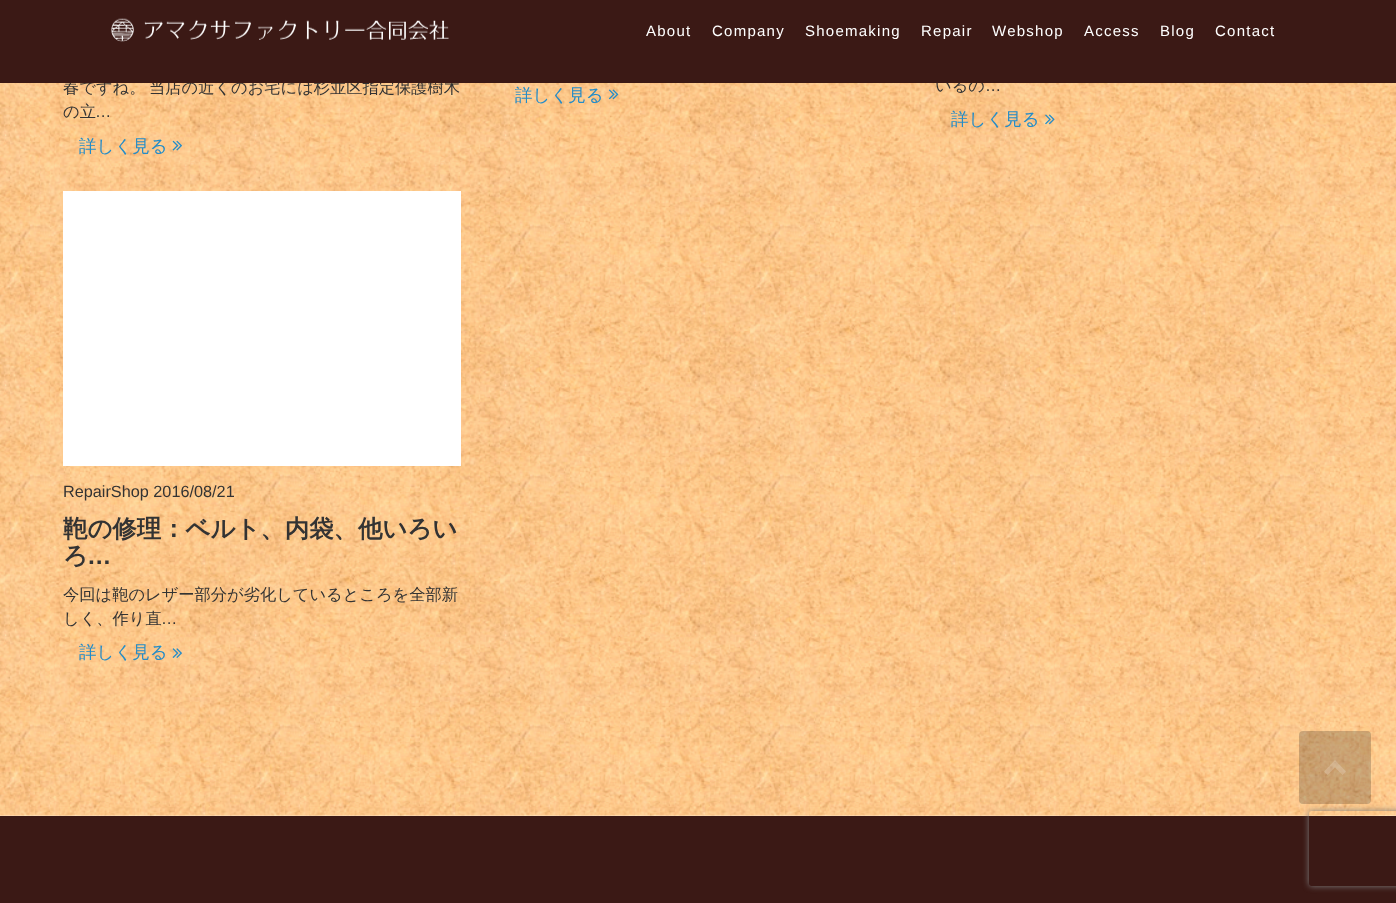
<?xml version="1.0" encoding="UTF-8"?>
<svg xmlns="http://www.w3.org/2000/svg" xmlns:xlink="http://www.w3.org/1999/xlink" width="1396" height="903">
  <defs>
    <clipPath id="clip1"><path d="M 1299 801 h 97 v 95 h -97 z m 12.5 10 h 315 c 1.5 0 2.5 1 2.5 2.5 v 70 c 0 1.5 -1 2.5 -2.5 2.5 h -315 c -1.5 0 -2.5 -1 -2.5 -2.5 v -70 c 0 -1.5 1 -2.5 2.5 -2.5 z" clip-rule="evenodd" /></clipPath>
  </defs>
  <rect width="100%" height="100%" fill="#ffffff" />
  <image x="0" y="83" width="1396" height="733" xlink:href="image2.png" />
  <image x="172" y="140" width="10" height="11" xlink:href="image3.png" />
  <image x="608" y="89" width="11" height="11" xlink:href="image4.png" />
  <image x="1045" y="114" width="10" height="11" xlink:href="image5.png" />
  <rect x="63" y="191" width="398" height="275" fill="#ffffff" />
  <image x="172" y="648" width="10" height="10" xlink:href="image6.png" />
  <rect y="816" width="1396" height="87" fill="#3b1915" />
  <g clip-path="url(#clip1)">
    <rect x="1309" y="811" width="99" height="75" rx="2.5" fill="#808080" filter="blur(3px)" />
  </g>
  <rect x="1299" y="731" width="72" height="73" rx="4" fill="#000000" fill-opacity="0.2" />
  <path d="M 1346 771.5 l -11 -11.5 l -11 11.5 l 3.5 3.5 l 7.5 -7.5 l 7.5 7.5 z" fill="#ffffff" fill-opacity="0.2" />
  <text x="63" y="93" style="font-family: WenQuanYi Zen Hei; font-size: 16.25px; font-weight: 500; fill: #333333">春ですね。</text>
  <text x="149" y="93" style="font-family: WenQuanYi Zen Hei; font-size: 16.25px; font-weight: 500; fill: #333333">当店の近くのお宅には杉並区指定保護樹木</text>
  <text x="63" y="117" style="font-family: WenQuanYi Zen Hei; font-size: 16.25px; font-weight: 500; fill: #333333">の立</text>
  <text x="95" y="117" style="font-family: Liberation Sans; font-size: 16.25px; fill: #333333">…</text>
  <text x="79" y="152" style="font-family: WenQuanYi Zen Hei; font-size: 17.5px; font-weight: 500; fill: #248cc8">詳しく見る</text>
  <text x="515" y="101" style="font-family: WenQuanYi Zen Hei; font-size: 17.5px; font-weight: 500; fill: #248cc8">詳しく見る</text>
  <text x="935" y="91" style="font-family: WenQuanYi Zen Hei; font-size: 16.25px; font-weight: 500; fill: #333333">いるの</text>
  <rect width="1396" height="83" fill="#3b1915" />
  <text x="1215" y="36" style="font-family: Liberation Sans; font-size: 15px; letter-spacing: 1.25px; fill: #ffffff">Contact</text>
  <text x="1160" y="36" style="font-family: Liberation Sans; font-size: 15px; letter-spacing: 1.25px; fill: #ffffff">Blog</text>
  <text x="1084" y="36" style="font-family: Liberation Sans; font-size: 15px; letter-spacing: 1.25px; fill: #ffffff">Access</text>
  <text x="992" y="36" style="font-family: Liberation Sans; font-size: 15px; letter-spacing: 1.25px; fill: #ffffff">Webshop</text>
  <text x="921" y="36" style="font-family: Liberation Sans; font-size: 15px; letter-spacing: 1.25px; fill: #ffffff">Repair</text>
  <text x="805" y="36" style="font-family: Liberation Sans; font-size: 15px; letter-spacing: 1.25px; fill: #ffffff">Shoemaking</text>
  <text x="712" y="36" style="font-family: Liberation Sans; font-size: 15px; letter-spacing: 1.25px; fill: #ffffff">Company</text>
  <text x="646" y="36" style="font-family: Liberation Sans; font-size: 15px; letter-spacing: 1.25px; fill: #ffffff">About</text>
  <image x="111" y="18" width="338" height="24" xlink:href="image1.png" />
  <text x="985" y="91" style="font-family: Liberation Sans; font-size: 16.25px; fill: #333333">…</text>
  <text x="951" y="125" style="font-family: WenQuanYi Zen Hei; font-size: 17.5px; font-weight: 500; fill: #248cc8">詳しく見る</text>
  <text x="63" y="497" style="font-family: Liberation Sans; font-size: 16.25px; fill: #333333">RepairShop 2016/08/21</text>
  <text x="63" y="537" style="font-family: WenQuanYi Zen Hei; font-size: 24.4px; font-weight: bold; fill: #333333">鞄の修理：ベルト、内袋、他いろい</text>
  <text x="63" y="564" style="font-family: WenQuanYi Zen Hei; font-size: 24.4px; font-weight: bold; fill: #333333">ろ</text>
  <text x="87" y="564" style="font-family: Liberation Sans; font-size: 24.4px; font-weight: bold; fill: #333333">…</text>
  <text x="63" y="600" style="font-family: WenQuanYi Zen Hei; font-size: 16.25px; font-weight: 500; fill: #333333">今回は鞄のレザー部分が劣化しているところを全部新</text>
  <text x="63" y="624" style="font-family: WenQuanYi Zen Hei; font-size: 16.25px; font-weight: 500; fill: #333333">しく、作り直</text>
  <text x="161" y="624" style="font-family: Liberation Sans; font-size: 16.25px; fill: #333333">…</text>
  <text x="79" y="658" style="font-family: WenQuanYi Zen Hei; font-size: 17.5px; font-weight: 500; fill: #248cc8">詳しく見る</text>
</svg>
